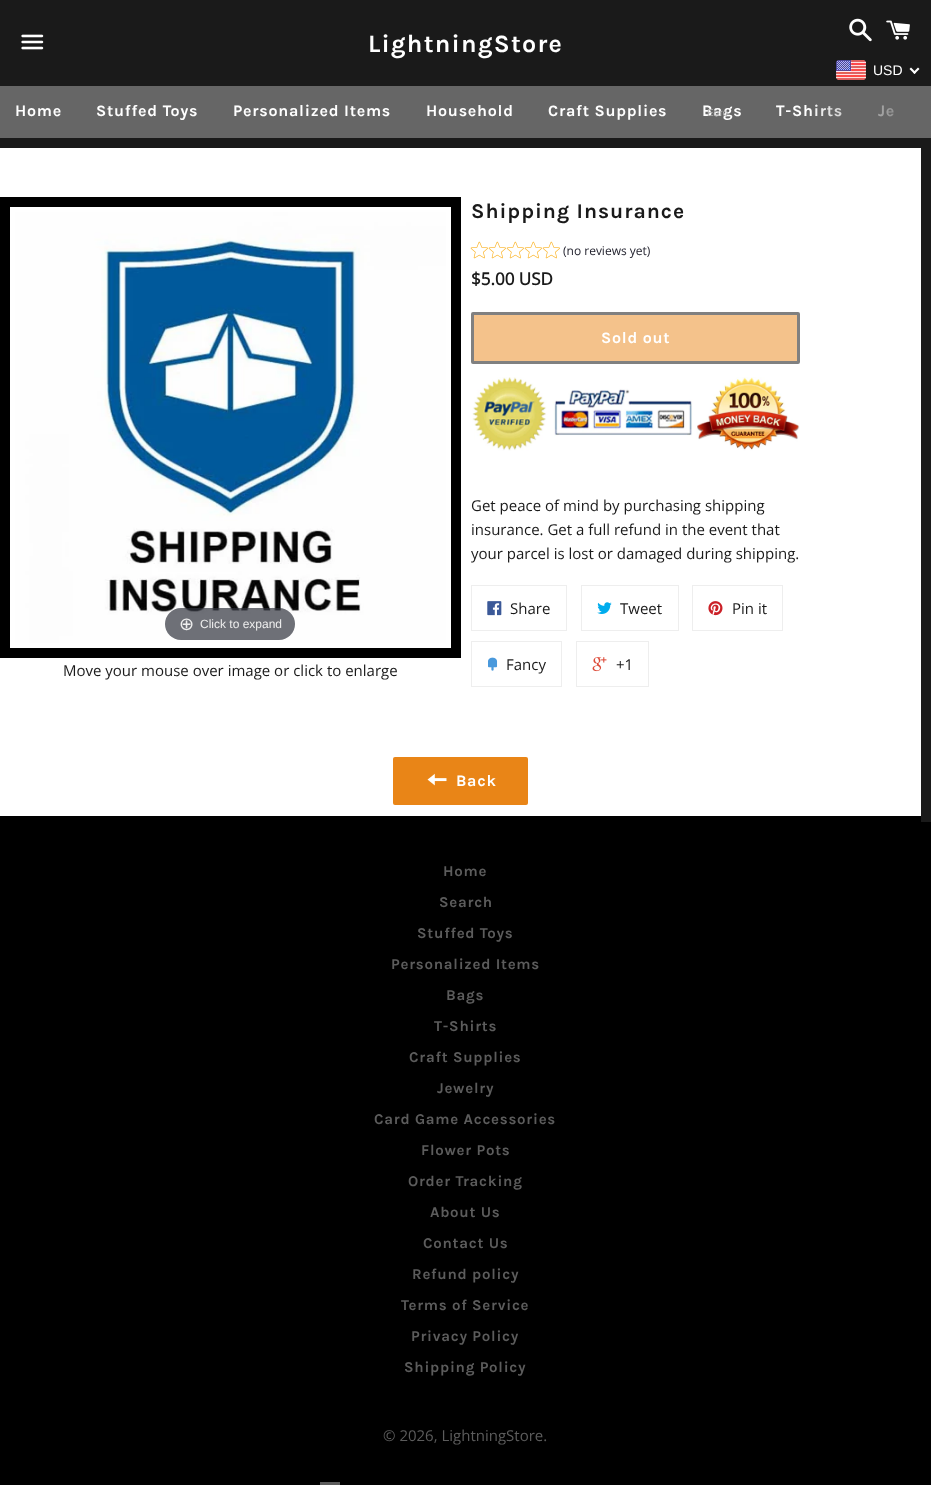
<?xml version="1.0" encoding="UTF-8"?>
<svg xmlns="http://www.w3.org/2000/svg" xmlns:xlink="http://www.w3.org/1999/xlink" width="931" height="1485">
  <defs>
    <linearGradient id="g1" gradientUnits="userSpaceOnUse" x1="806" y1="112" x2="931" y2="112"><stop offset="0" stop-color="#666666" stop-opacity="0" /><stop offset="1" stop-color="#666666" /></linearGradient>
  </defs>
  <rect width="100%" height="100%" fill="#ffffff" />
  <rect width="931" height="86" fill="#1a1a1a" />
  <image x="21" y="34" width="23" height="16" xlink:href="image1.png" />
  <image x="849" y="18" width="23" height="24" xlink:href="image2.png" />
  <image x="886" y="20" width="24" height="20" xlink:href="image3.png" />
  <image x="836" y="60" width="30" height="20" xlink:href="image4.png" />
  <path d="M 918 67.5 l 1.5 1.5 l -5 5 l -1.5 -1.5 z" fill="#ffffff" />
  <path d="M 911 67.5 l 5 5 l -1.5 1.5 l -5 -5 z" fill="#ffffff" />
  <rect y="138" width="931" height="10" fill="#1a1a1a" />
  <rect y="86" width="930" height="52" fill="#666666" />
  <rect y="816" width="931" height="669" fill="#000000" />
  <rect x="921" y="148" width="10" height="674" fill="#1a1a1a" />
  <rect x="5" y="202" width="451" height="451" fill="none" stroke="#000000" stroke-width="10" />
  <image x="15" y="212" width="431" height="431" xlink:href="image5.png" />
  <rect x="165" y="608" width="130" height="32" rx="16" fill="#31333d" fill-opacity="0.7" />
  <image x="470" y="241" width="18" height="18" xlink:href="image6.png" />
  <image x="488" y="241" width="18" height="18" xlink:href="image6.png" />
  <image x="506" y="241" width="18" height="18" xlink:href="image6.png" />
  <image x="524" y="241" width="18" height="18" xlink:href="image6.png" />
  <image x="542" y="241" width="18" height="18" xlink:href="image6.png" />
  <rect x="472.5" y="313.5" width="326" height="49" rx="0.5" fill="#f4c28b" stroke="#808080" stroke-width="3" />
  <image x="472" y="377" width="328" height="74" xlink:href="image7.png" />
  <rect x="471.5" y="585.5" width="95" height="45" fill="none" stroke="#eeeeee" />
  <image x="487" y="601" width="15" height="15" xlink:href="image8.png" />
  <rect x="581.5" y="585.5" width="97" height="45" fill="none" stroke="#eeeeee" />
  <image x="597" y="602" width="15" height="12" xlink:href="image9.png" />
  <rect x="692.5" y="585.5" width="90" height="45" fill="none" stroke="#eeeeee" />
  <image x="708" y="601" width="15" height="15" xlink:href="image10.png" />
  <rect x="471.5" y="641.5" width="90" height="45" fill="none" stroke="#eeeeee" />
  <image x="488" y="657" width="10" height="14" xlink:href="image11.png" />
  <rect x="576.5" y="641.5" width="72" height="45" fill="none" stroke="#eeeeee" />
  <image x="592" y="657" width="15" height="15" xlink:href="image12.png" />
  <rect x="393" y="757" width="135" height="48" rx="2" fill="#e98517" />
  <image x="427" y="773" width="20" height="13" xlink:href="image13.png" />
  <rect x="320" y="1482" width="20" height="3" fill="#5c5c5c" />
  <text x="368" y="52" style="font-family: Karla; font-size: 25px; font-weight: bold; letter-spacing: 1.25px; fill: #ffffff">LightningStore</text>
  <text x="873" y="75" style="font-family: Liberation Sans; font-size: 14px; fill: #ffffff">USD</text>
  <text x="15" y="116" style="font-family: Karla; font-size: 16px; font-weight: bold; letter-spacing: 0.75px; fill: #ffffff">Home</text>
  <text x="96" y="116" style="font-family: Karla; font-size: 16px; font-weight: bold; letter-spacing: 0.75px; fill: #ffffff">Stuffed Toys</text>
  <text x="233" y="116" style="font-family: Karla; font-size: 16px; font-weight: bold; letter-spacing: 0.75px; fill: #ffffff">Personalized Items</text>
  <text x="426" y="116" style="font-family: Karla; font-size: 16px; font-weight: bold; letter-spacing: 0.75px; fill: #ffffff">Household</text>
  <text x="548" y="116" style="font-family: Karla; font-size: 16px; font-weight: bold; letter-spacing: 0.75px; fill: #ffffff">Craft Supplies</text>
  <text x="702" y="116" style="font-family: Karla; font-size: 16px; font-weight: bold; letter-spacing: 0.75px; fill: #ffffff">Bags</text>
  <text x="707" y="116" style="font-family: Liberation Sans; font-size: 10px; fill: #b0b0b0">Euro</text>
  <text x="776" y="116" style="font-family: Karla; font-size: 16px; font-weight: bold; letter-spacing: 0.75px; fill: #ffffff">T-Shirts</text>
  <text x="878" y="116" style="font-family: Karla; font-size: 16px; font-weight: bold; letter-spacing: 0.75px; fill: #ffffff">Je</text>
  <rect x="809" y="86" width="122" height="52" fill="url(#g1)" />
  <text x="179" y="630" style="font-family: DejaVu Sans; font-size: 18px; fill: #eeeeee">⊕</text>
  <text x="200" y="628" style="font-family: Liberation Sans; font-size: 12px; fill: #eeeeee">Click to expand</text>
  <text x="63" y="676" style="font-family: Open Sans; font-size: 15px; fill: #1a1a1a">Move your mouse over image or click to enlarge</text>
  <text x="471" y="218" style="font-family: Karla; font-size: 21px; font-weight: bold; letter-spacing: 1px; fill: #1a1a1a">Shipping Insurance</text>
  <text x="563" y="255" style="font-family: Open Sans; font-size: 12px; fill: #1c1c28">(no reviews yet)</text>
  <text x="471" y="285" style="font-family: Open Sans; font-size: 17px; font-weight: bold; fill: #1a1a1a">$5.00 USD</text>
  <text x="601" y="343" style="font-family: Karla; font-size: 16px; font-weight: bold; letter-spacing: 0.75px; fill: #ffffff">Sold out</text>
  <text x="471" y="511" style="font-family: Open Sans; font-size: 15px; fill: #1a1a1a">Get peace of mind by purchasing shipping</text>
  <text x="471" y="535" style="font-family: Open Sans; font-size: 15px; fill: #1a1a1a">insurance. Get a full refund in the event that</text>
  <text x="471" y="559" style="font-family: Open Sans; font-size: 15px; fill: #1a1a1a">your parcel is lost or damaged during shipping.</text>
  <text x="510" y="614" style="font-family: Open Sans; font-size: 15px; fill: #1a1a1a">Share</text>
  <text x="620" y="614" style="font-family: Open Sans; font-size: 15px; fill: #1a1a1a">Tweet</text>
  <text x="732" y="614" style="font-family: Open Sans; font-size: 15px; fill: #1a1a1a">Pin it</text>
  <text x="506" y="670" style="font-family: Open Sans; font-size: 15px; fill: #1a1a1a">Fancy</text>
  <text x="616" y="670" style="font-family: Open Sans; font-size: 15px; fill: #1a1a1a">+1</text>
  <text x="456" y="786" style="font-family: Karla; font-size: 16px; font-weight: bold; letter-spacing: 0.75px; fill: #ffffff">Back</text>
  <text x="443" y="876" style="font-family: Karla; font-size: 15px; font-weight: bold; letter-spacing: 0.75px; fill: #5c5c5c">Home</text>
  <text x="439" y="907" style="font-family: Karla; font-size: 15px; font-weight: bold; letter-spacing: 0.75px; fill: #5c5c5c">Search</text>
  <text x="417" y="938" style="font-family: Karla; font-size: 15px; font-weight: bold; letter-spacing: 0.75px; fill: #5c5c5c">Stuffed Toys</text>
  <text x="391" y="969" style="font-family: Karla; font-size: 15px; font-weight: bold; letter-spacing: 0.75px; fill: #5c5c5c">Personalized Items</text>
  <text x="446" y="1000" style="font-family: Karla; font-size: 15px; font-weight: bold; letter-spacing: 0.75px; fill: #5c5c5c">Bags</text>
  <text x="434" y="1031" style="font-family: Karla; font-size: 15px; font-weight: bold; letter-spacing: 0.75px; fill: #5c5c5c">T-Shirts</text>
  <text x="409" y="1062" style="font-family: Karla; font-size: 15px; font-weight: bold; letter-spacing: 0.75px; fill: #5c5c5c">Craft Supplies</text>
  <text x="437" y="1093" style="font-family: Karla; font-size: 15px; font-weight: bold; letter-spacing: 0.75px; fill: #5c5c5c">Jewelry</text>
  <text x="374" y="1124" style="font-family: Karla; font-size: 15px; font-weight: bold; letter-spacing: 0.75px; fill: #5c5c5c">Card Game Accessories</text>
  <text x="421" y="1155" style="font-family: Karla; font-size: 15px; font-weight: bold; letter-spacing: 0.75px; fill: #5c5c5c">Flower Pots</text>
  <text x="408" y="1186" style="font-family: Karla; font-size: 15px; font-weight: bold; letter-spacing: 0.75px; fill: #5c5c5c">Order Tracking</text>
  <text x="430" y="1217" style="font-family: Karla; font-size: 15px; font-weight: bold; letter-spacing: 0.75px; fill: #5c5c5c">About Us</text>
  <text x="423" y="1248" style="font-family: Karla; font-size: 15px; font-weight: bold; letter-spacing: 0.75px; fill: #5c5c5c">Contact Us</text>
  <text x="412" y="1279" style="font-family: Karla; font-size: 15px; font-weight: bold; letter-spacing: 0.75px; fill: #5c5c5c">Refund policy</text>
  <text x="401" y="1310" style="font-family: Karla; font-size: 15px; font-weight: bold; letter-spacing: 0.75px; fill: #5c5c5c">Terms of Service</text>
  <text x="411" y="1341" style="font-family: Karla; font-size: 15px; font-weight: bold; letter-spacing: 0.75px; fill: #5c5c5c">Privacy Policy</text>
  <text x="404" y="1372" style="font-family: Karla; font-size: 15px; font-weight: bold; letter-spacing: 0.75px; fill: #5c5c5c">Shipping Policy</text>
  <text x="383" y="1441" style="font-family: Open Sans; font-size: 15px; fill: #5c5c5c">© 2026, LightningStore.</text>
</svg>
